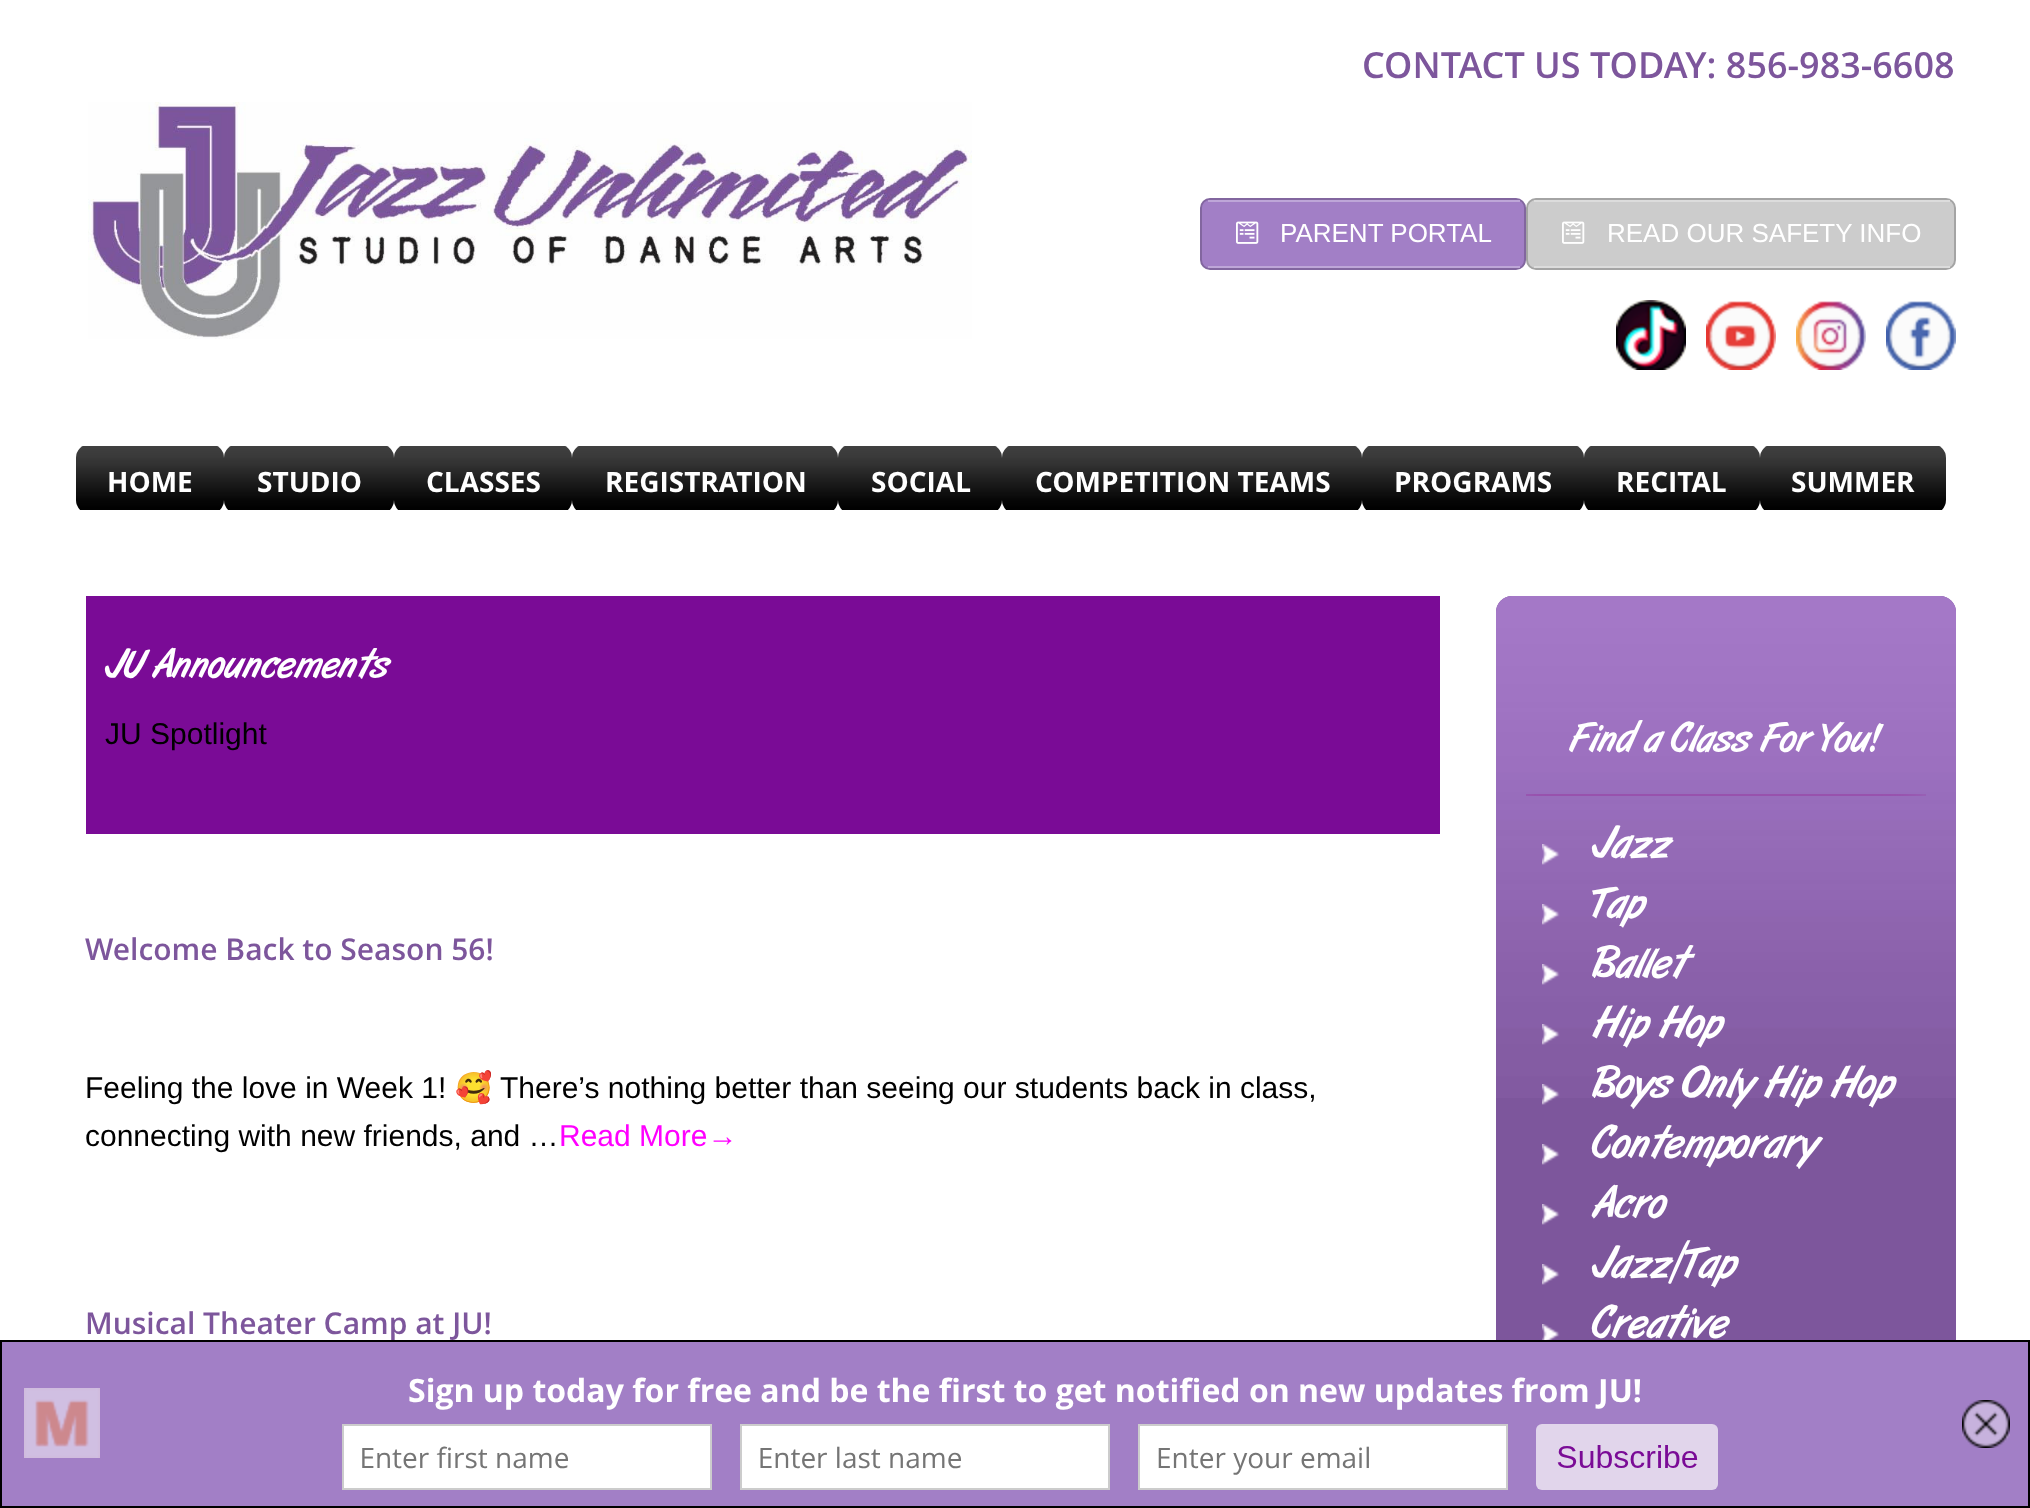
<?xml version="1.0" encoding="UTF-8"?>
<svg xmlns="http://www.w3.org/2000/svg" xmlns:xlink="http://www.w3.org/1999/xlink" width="2030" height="1508">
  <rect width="100%" height="100%" fill="#ffffff" />
  <image x="88" y="102" width="884" height="237" xlink:href="image1.png" />
  <rect x="1201" y="199" width="324" height="70" rx="9" fill="#a27fc6" stroke="#82669f" stroke-width="2" />
  <rect x="1208" y="200" width="312" height="2" fill="#bea6d8" />
  <rect x="1208" y="266" width="312" height="2" fill="#bea6d8" />
  <image x="1236" y="221" width="23" height="23" xlink:href="image2.png" />
  <rect x="1527" y="199" width="428" height="70" rx="9" fill="#cccccc" stroke="#a4a4a4" stroke-width="2" />
  <rect x="1534" y="200" width="416" height="2" fill="#dcdcdc" />
  <rect x="1534" y="266" width="416" height="2" fill="#dcdcdc" />
  <image x="1562" y="221" width="23" height="23" xlink:href="image3.png" />
  <image x="1616" y="300" width="70" height="70" xlink:href="image4.png" />
  <image x="1706" y="301" width="70" height="69" xlink:href="image5.png" />
  <image x="1796" y="301" width="70" height="69" xlink:href="image6.png" />
  <image x="1886" y="301" width="70" height="69" xlink:href="image7.png" />
  <image x="76" y="446" width="148" height="64" xlink:href="image8.png" />
  <image x="224" y="446" width="170" height="64" xlink:href="image9.png" />
  <image x="394" y="446" width="178" height="64" xlink:href="image10.png" />
  <image x="572" y="446" width="266" height="64" xlink:href="image11.png" />
  <image x="838" y="446" width="164" height="64" xlink:href="image12.png" />
  <image x="1002" y="446" width="360" height="64" xlink:href="image13.png" />
  <image x="1362" y="446" width="222" height="64" xlink:href="image14.png" />
  <image x="1584" y="446" width="176" height="64" xlink:href="image15.png" />
  <image x="1760" y="446" width="186" height="64" xlink:href="image16.png" />
  <rect x="86" y="596" width="1354" height="238" fill="#7a0b96" />
  <rect x="1496" y="596" width="460" height="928" rx="16" fill="#7d569c" />
  <image x="1496" y="596" width="460" height="502" xlink:href="image17.png" />
  <image x="1526" y="794" width="400" height="2" xlink:href="image18.png" />
  <image x="1542" y="844" width="18" height="21" xlink:href="image19.png" />
  <image x="1542" y="904" width="18" height="21" xlink:href="image20.png" />
  <image x="1542" y="964" width="18" height="21" xlink:href="image21.png" />
  <image x="1542" y="1024" width="18" height="21" xlink:href="image22.png" />
  <image x="1542" y="1084" width="18" height="21" xlink:href="image23.png" />
  <image x="1542" y="1144" width="18" height="21" xlink:href="image24.png" />
  <image x="1542" y="1204" width="18" height="21" xlink:href="image24.png" />
  <image x="1542" y="1264" width="18" height="21" xlink:href="image24.png" />
  <image x="1542" y="1324" width="18" height="16" xlink:href="image25.png" />
  <text x="1362" y="78" style="font-family: Open Sans; font-size: 36px; font-weight: 600; fill: #7d569c">CONTACT US TODAY: 856-983-6608</text>
  <text x="1280" y="242" style="font-family: Liberation Sans; font-size: 26px; fill: #ffffff">PARENT PORTAL</text>
  <text x="1607" y="242" style="font-family: Liberation Sans; font-size: 26px; fill: #ffffff">READ OUR SAFETY INFO</text>
  <text x="107" y="492" style="font-family: Open Sans; font-size: 28px; font-weight: bold; fill: #ffffff">HOME</text>
  <text x="257" y="492" style="font-family: Open Sans; font-size: 28px; font-weight: bold; fill: #ffffff">STUDIO</text>
  <text x="426" y="492" style="font-family: Open Sans; font-size: 28px; font-weight: bold; fill: #ffffff">CLASSES</text>
  <text x="605" y="492" style="font-family: Open Sans; font-size: 28px; font-weight: bold; fill: #ffffff">REGISTRATION</text>
  <text x="871" y="492" style="font-family: Open Sans; font-size: 28px; font-weight: bold; fill: #ffffff">SOCIAL</text>
  <text x="1035" y="492" style="font-family: Open Sans; font-size: 28px; font-weight: bold; fill: #ffffff">COMPETITION TEAMS</text>
  <text x="1394" y="492" style="font-family: Open Sans; font-size: 28px; font-weight: bold; fill: #ffffff">PROGRAMS</text>
  <text x="1616" y="492" style="font-family: Open Sans; font-size: 28px; font-weight: bold; fill: #ffffff">RECITAL</text>
  <text x="1791" y="492" style="font-family: Open Sans; font-size: 28px; font-weight: bold; fill: #ffffff">SUMMER</text>
  <text x="105" y="678" style="font-family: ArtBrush; font-size: 40px; fill: #ffffff">JU Announcements</text>
  <text x="105" y="744" style="font-family: Liberation Sans; font-size: 30px; fill: #000000">JU Spotlight</text>
  <text x="85" y="960" style="font-family: Open Sans; font-size: 30px; font-weight: 600; fill: #7d569c">Welcome Back to Season 56!</text>
  <text x="85" y="1098" style="font-family: Liberation Sans; font-size: 30px; fill: #000000">Feeling the love in Week 1!</text>
  <text x="455" y="1098" style="font-family: Noto Color Emoji; font-size: 30px; fill: #000000">🥰</text>
  <text x="500" y="1098" style="font-family: Liberation Sans; font-size: 30px; fill: #000000">There’s nothing better than seeing our students back in class,</text>
  <text x="85" y="1146" style="font-family: Liberation Sans; font-size: 30px; fill: #000000">connecting with new friends, and …</text>
  <text x="559" y="1146" style="font-family: Liberation Sans; font-size: 30px; fill: #ff00ff">Read More→</text>
  <text x="85" y="1334" style="font-family: Open Sans; font-size: 30px; font-weight: 600; fill: #7d569c">Musical Theater Camp at JU!</text>
  <text x="1569" y="752" style="font-family: ArtBrush; font-size: 40px; fill: #ffffff">Find a Class For You!</text>
  <text x="1592" y="858" style="font-family: ArtBrush; font-size: 44px; fill: #ffffff">Jazz</text>
  <text x="1592" y="918" style="font-family: ArtBrush; font-size: 44px; fill: #ffffff">Tap</text>
  <text x="1592" y="978" style="font-family: ArtBrush; font-size: 44px; fill: #ffffff">Ballet</text>
  <text x="1592" y="1038" style="font-family: ArtBrush; font-size: 44px; fill: #ffffff">Hip Hop</text>
  <text x="1592" y="1098" style="font-family: ArtBrush; font-size: 44px; fill: #ffffff">Boys Only Hip Hop</text>
  <text x="1592" y="1158" style="font-family: ArtBrush; font-size: 44px; fill: #ffffff">Contemporary</text>
  <text x="1592" y="1218" style="font-family: ArtBrush; font-size: 44px; fill: #ffffff">Acro</text>
  <text x="1592" y="1278" style="font-family: ArtBrush; font-size: 44px; fill: #ffffff">Jazz/Tap</text>
  <text x="1592" y="1338" style="font-family: ArtBrush; font-size: 44px; fill: #ffffff">Creative</text>
  <image x="0" y="1340" width="2030" height="168" xlink:href="image26.png" />
</svg>
